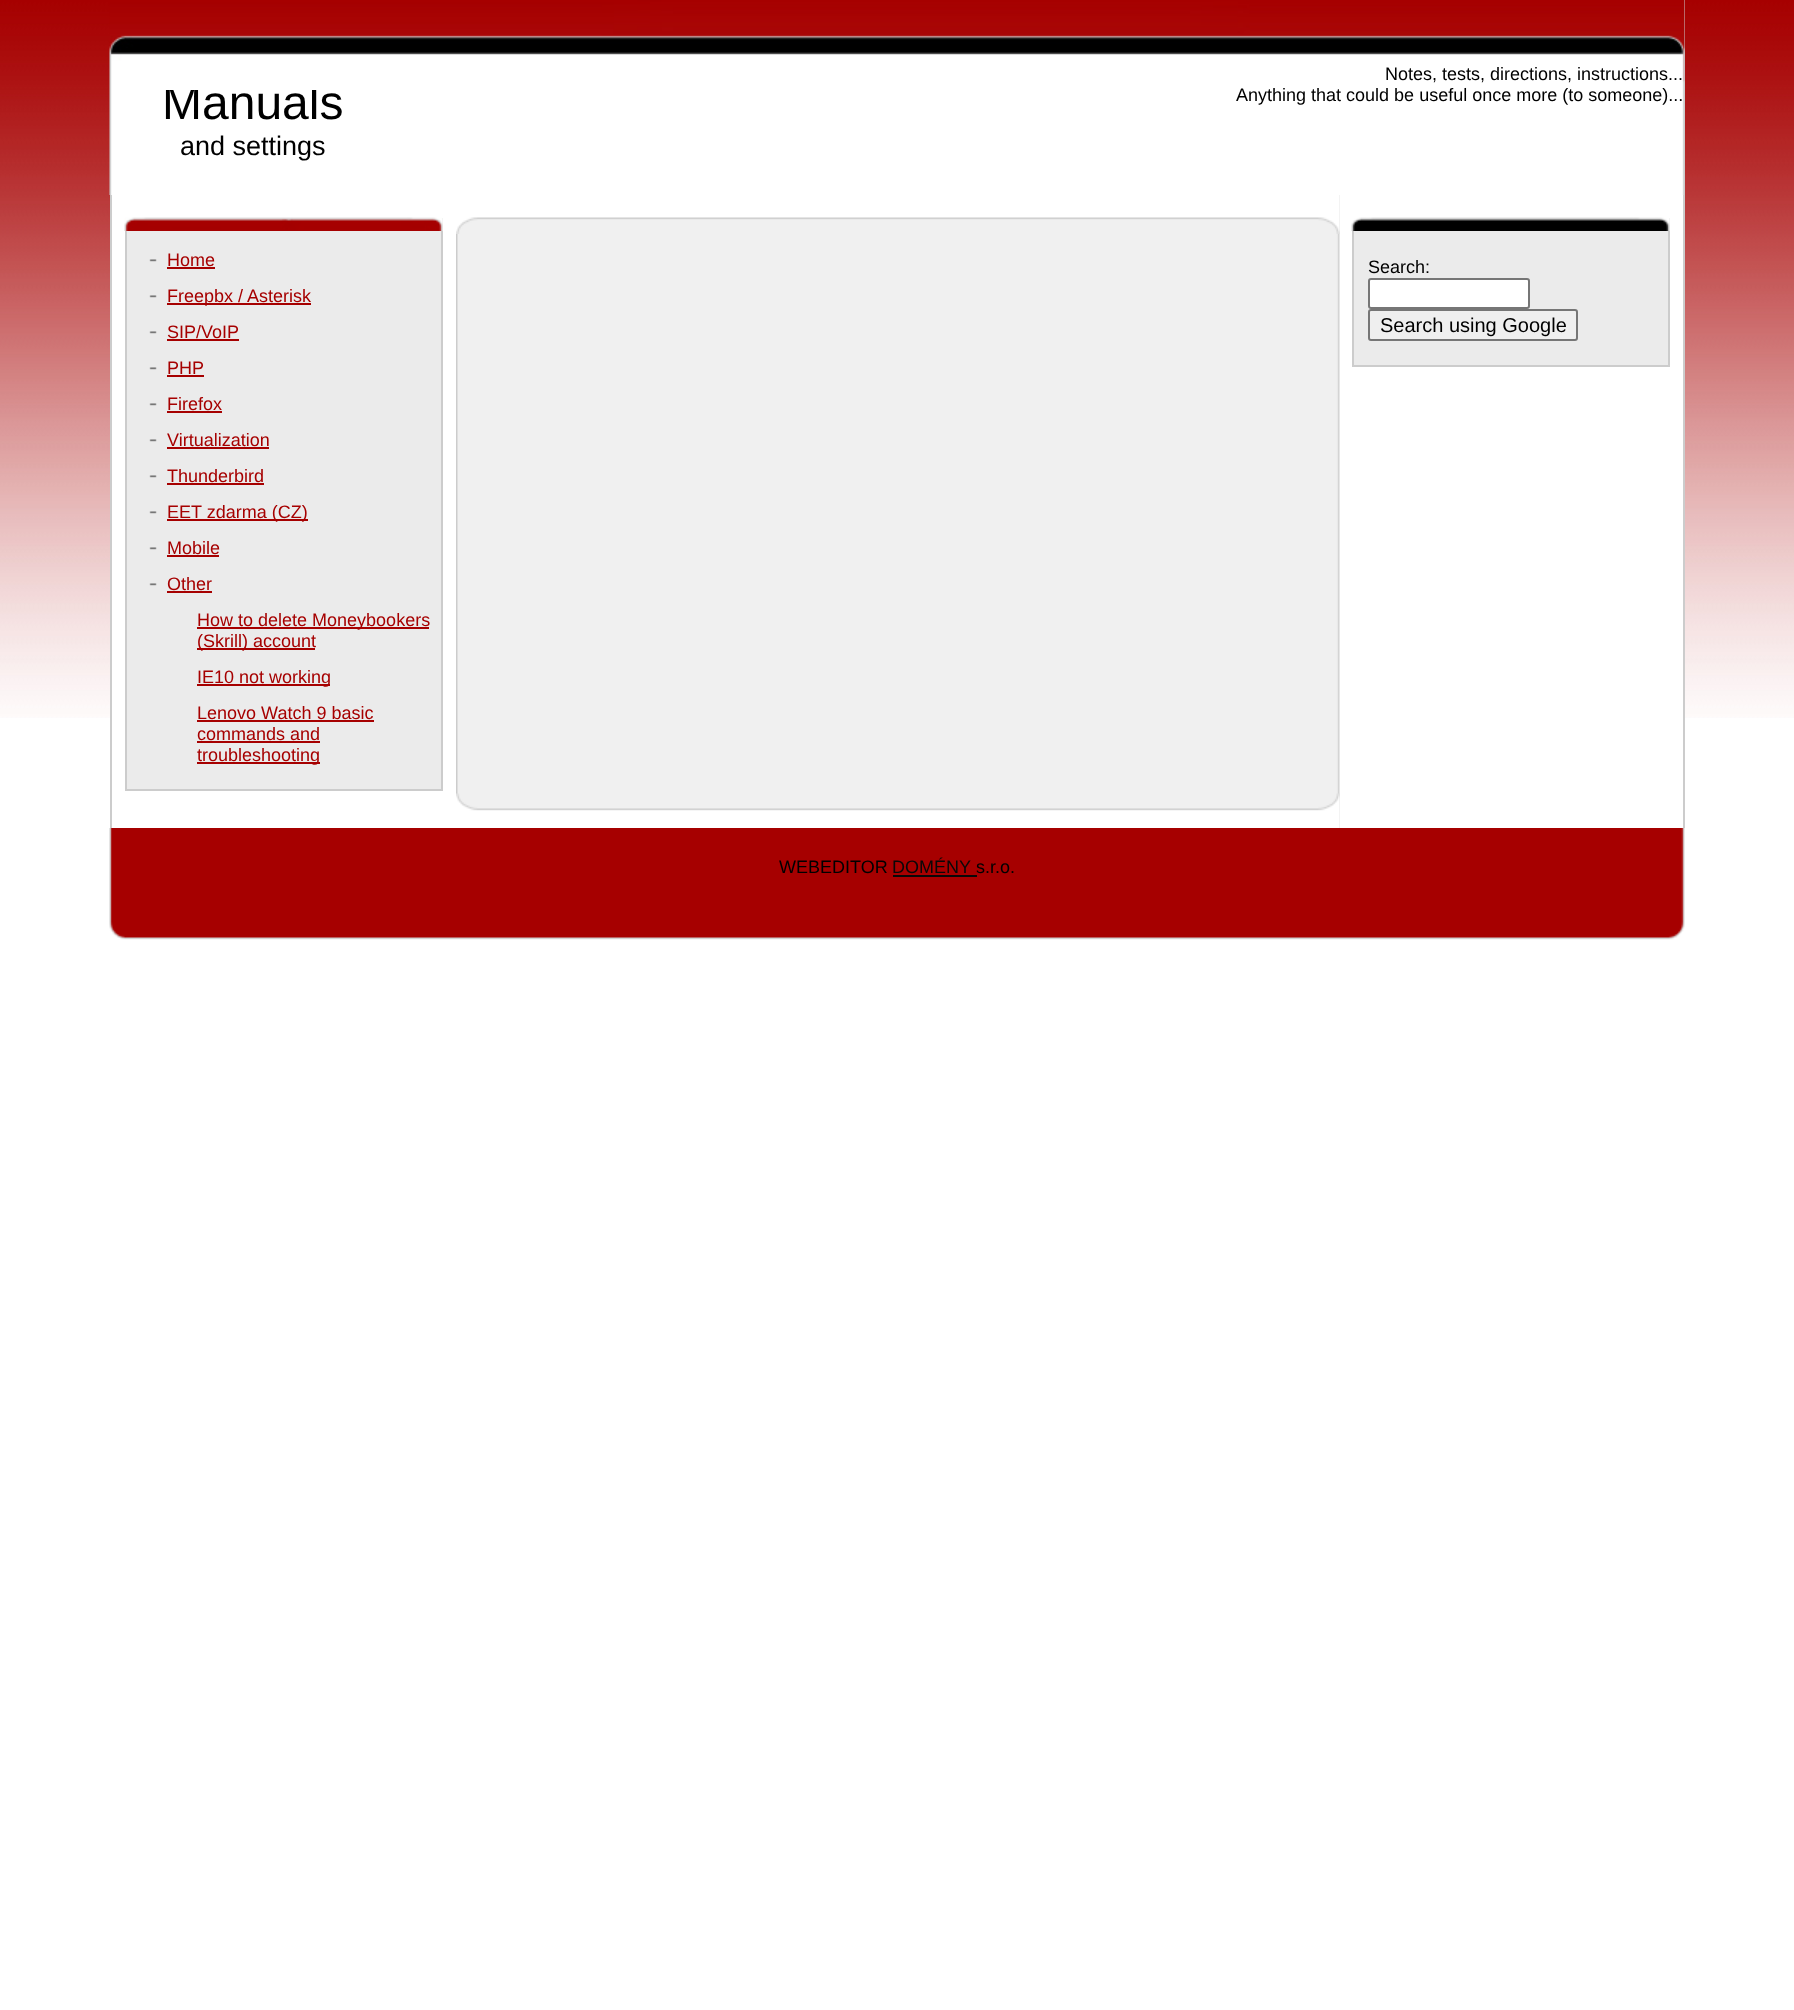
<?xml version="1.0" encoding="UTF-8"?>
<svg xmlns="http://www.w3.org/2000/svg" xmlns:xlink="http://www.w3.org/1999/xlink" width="1794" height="2010">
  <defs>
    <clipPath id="clip1"><rect x="162" y="90" width="182" height="87" /></clipPath>
  </defs>
  <rect width="100%" height="100%" fill="#ffffff" />
  <image x="0" y="0" width="1794" height="718" xlink:href="image1.png" />
  <rect x="112" y="195" width="1571" height="523" fill="#ffffff" />
  <image x="456" y="195" width="884" height="633" xlink:href="image2.png" />
  <rect x="1684" width="1" height="195" fill="#cccccc" />
  <image x="109" y="0" width="1576" height="195" xlink:href="image3.png" />
  <rect x="1683" y="195" width="2" height="633" fill="#cccccc" />
  <rect x="110" y="195" width="2" height="633" fill="#cccccc" />
  <image x="456" y="195" width="884" height="39" xlink:href="image4.png" />
  <rect x="127" y="218" width="316" height="571" fill="#ebebeb" />
  <image x="124" y="217" width="319" height="14" xlink:href="image5.png" />
  <rect x="441" y="231" width="2" height="560" fill="#cccccc" />
  <rect x="125" y="789" width="318" height="2" fill="#cccccc" />
  <rect x="125" y="231" width="2" height="560" fill="#cccccc" />
  <image x="149" y="259" width="8" height="3" xlink:href="image6.png" />
  <rect x="167" y="267" width="48" height="2" fill="#a60000" />
  <image x="149" y="295" width="8" height="3" xlink:href="image6.png" />
  <rect x="167" y="303" width="144" height="2" fill="#a60000" />
  <image x="149" y="331" width="8" height="3" xlink:href="image6.png" />
  <rect x="167" y="339" width="72" height="2" fill="#a60000" />
  <image x="149" y="367" width="8" height="3" xlink:href="image6.png" />
  <rect x="167" y="375" width="37" height="2" fill="#a60000" />
  <image x="149" y="403" width="8" height="3" xlink:href="image6.png" />
  <rect x="167" y="411" width="55" height="2" fill="#a60000" />
  <image x="149" y="439" width="8" height="3" xlink:href="image6.png" />
  <rect x="167" y="447" width="102" height="2" fill="#a60000" />
  <image x="149" y="475" width="8" height="3" xlink:href="image6.png" />
  <rect x="167" y="483" width="97" height="2" fill="#a60000" />
  <image x="149" y="511" width="8" height="3" xlink:href="image6.png" />
  <rect x="167" y="519" width="141" height="2" fill="#a60000" />
  <image x="149" y="547" width="8" height="3" xlink:href="image6.png" />
  <rect x="167" y="555" width="52" height="2" fill="#a60000" />
  <image x="149" y="583" width="8" height="3" xlink:href="image6.png" />
  <rect x="167" y="591" width="45" height="2" fill="#a60000" />
  <rect x="197" y="627" width="232" height="2" fill="#a60000" />
  <rect x="197" y="648" width="118" height="2" fill="#a60000" />
  <rect x="197" y="684" width="133" height="2" fill="#a60000" />
  <rect x="197" y="720" width="177" height="2" fill="#a60000" />
  <rect x="197" y="741" width="123" height="2" fill="#a60000" />
  <rect x="197" y="762" width="123" height="2" fill="#a60000" />
  <rect x="1354" y="218" width="316" height="147" fill="#ebebeb" />
  <image x="1351" y="217" width="319" height="14" xlink:href="image7.png" />
  <rect x="1668" y="231" width="2" height="135" fill="#cccccc" />
  <rect x="1352" y="365" width="318" height="2" fill="#cccccc" />
  <rect x="1352" y="231" width="2" height="135" fill="#cccccc" />
  <rect x="1369" y="279" width="160" height="29" rx="2" fill="#ffffff" stroke="#767676" stroke-width="2" />
  <rect x="1369" y="310" width="208" height="30" rx="2" fill="#efefef" stroke="#767676" stroke-width="2" />
  <image x="456" y="793" width="884" height="35" xlink:href="image8.png" />
  <image x="109" y="828" width="1576" height="112" xlink:href="image9.png" />
  <rect x="893" y="875" width="84" height="2" fill="#080808" />
  <text x="1385" y="80" style="font-family: Liberation Sans; font-size: 18px; fill: #000000">Notes, tests, directions, instructions...</text>
  <text x="1236" y="101" style="font-family: Liberation Sans; font-size: 18px; fill: #000000">Anything that could be useful once more (to someone)...</text>
  <g clip-path="url(#clip1)">
    <text x="162" y="119" style="font-family: Liberation Sans; font-size: 48px; fill: #000000">Manuals</text>
  </g>
  <text x="180" y="155" style="font-family: Liberation Sans; font-size: 27px; fill: #000000">and settings</text>
  <text x="167" y="266" style="font-family: Liberation Sans; font-size: 18px; fill: #a60000">Home</text>
  <text x="167" y="302" style="font-family: Liberation Sans; font-size: 18px; fill: #a60000">Freepbx / Asterisk</text>
  <text x="167" y="338" style="font-family: Liberation Sans; font-size: 18px; fill: #a60000">SIP/VoIP</text>
  <text x="167" y="374" style="font-family: Liberation Sans; font-size: 18px; fill: #a60000">PHP</text>
  <text x="167" y="410" style="font-family: Liberation Sans; font-size: 18px; fill: #a60000">Firefox</text>
  <text x="167" y="446" style="font-family: Liberation Sans; font-size: 18px; fill: #a60000">Virtualization</text>
  <text x="167" y="482" style="font-family: Liberation Sans; font-size: 18px; fill: #a60000">Thunderbird</text>
  <text x="167" y="518" style="font-family: Liberation Sans; font-size: 18px; fill: #a60000">EET zdarma (CZ)</text>
  <text x="167" y="554" style="font-family: Liberation Sans; font-size: 18px; fill: #a60000">Mobile</text>
  <text x="167" y="590" style="font-family: Liberation Sans; font-size: 18px; fill: #a60000">Other</text>
  <text x="197" y="626" style="font-family: Liberation Sans; font-size: 18px; fill: #a60000">How to delete Moneybookers</text>
  <text x="197" y="647" style="font-family: Liberation Sans; font-size: 18px; fill: #a60000">(Skrill) account</text>
  <text x="197" y="683" style="font-family: Liberation Sans; font-size: 18px; fill: #a60000">IE10 not working</text>
  <text x="197" y="719" style="font-family: Liberation Sans; font-size: 18px; fill: #a60000">Lenovo Watch 9 basic</text>
  <text x="197" y="740" style="font-family: Liberation Sans; font-size: 18px; fill: #a60000">commands and</text>
  <text x="197" y="761" style="font-family: Liberation Sans; font-size: 18px; fill: #a60000">troubleshooting</text>
  <text x="1368" y="273" style="font-family: Liberation Sans; font-size: 18px; fill: #000000">Search:</text>
  <text x="1380" y="332" style="font-family: Liberation Sans; font-size: 20px; fill: #000000">Search using Google</text>
  <text x="779" y="873" style="font-family: Liberation Sans; font-size: 18px; fill: #000000">WEBEDITOR</text>
  <text x="892" y="873" style="font-family: Liberation Sans; font-size: 18px; fill: #080808">DOMÉNY</text>
  <text x="976" y="873" style="font-family: Liberation Sans; font-size: 18px; fill: #000000">s.r.o.</text>
</svg>
